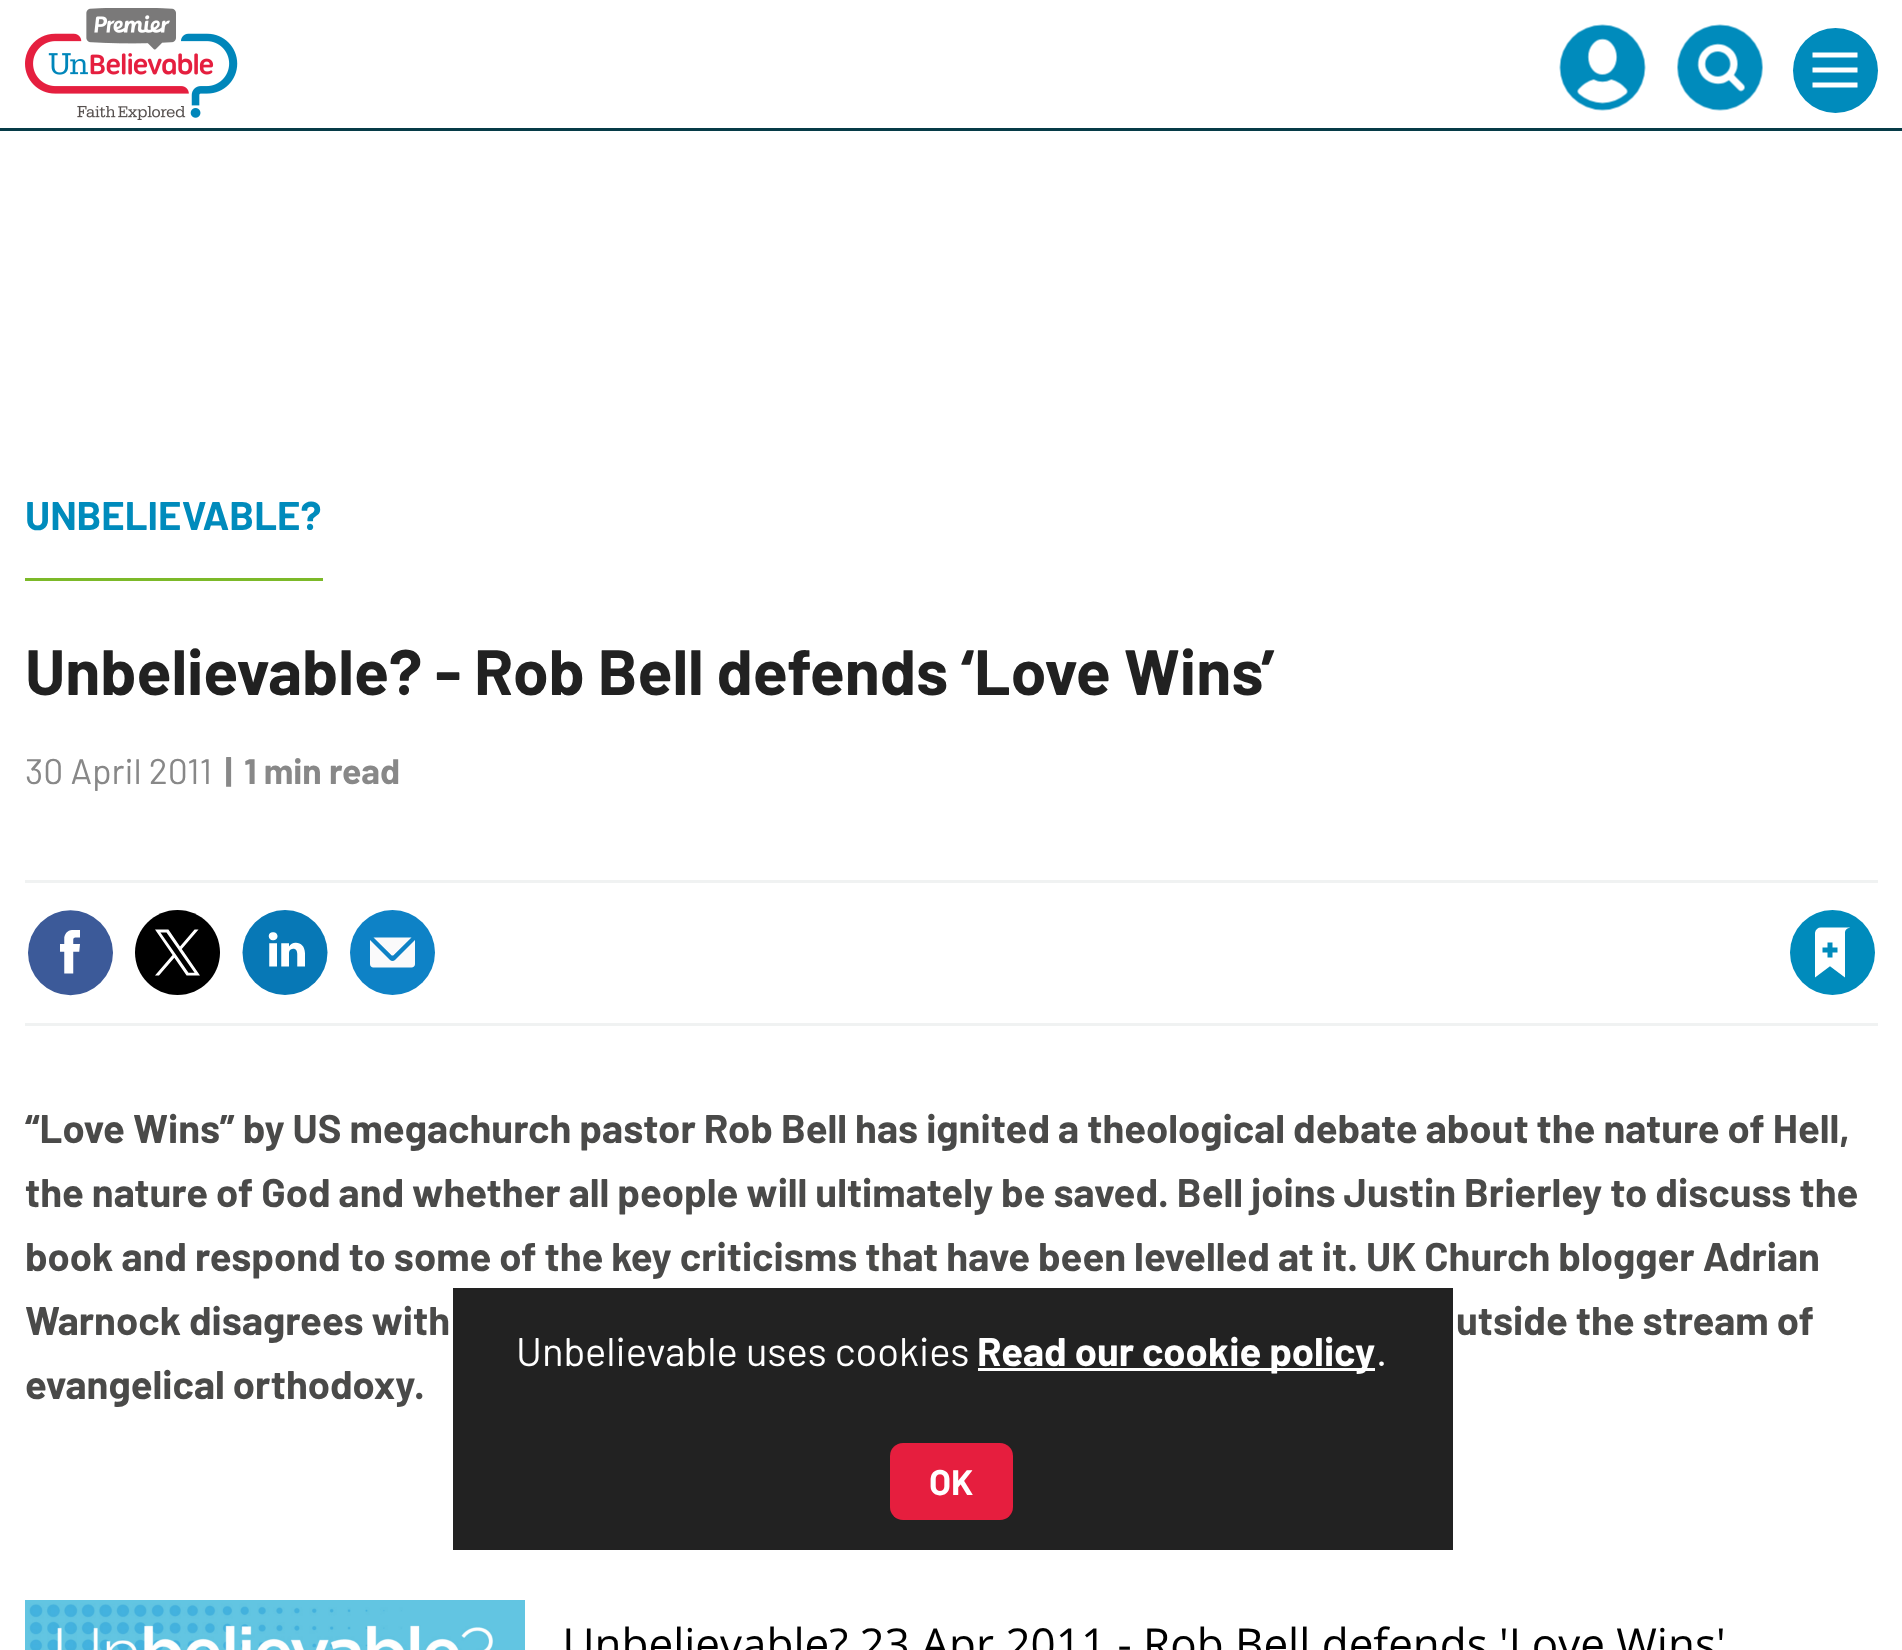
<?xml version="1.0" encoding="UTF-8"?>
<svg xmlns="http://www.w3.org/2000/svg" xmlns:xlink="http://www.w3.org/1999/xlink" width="1902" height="1650">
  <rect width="100%" height="100%" fill="#ffffff" />
  <rect y="128" width="1902" height="3" fill="#063b47" />
  <image x="25" y="8" width="213" height="112" xlink:href="image1.png" />
  <image x="1559" y="24" width="87" height="87" xlink:href="image2.png" />
  <image x="1677" y="24" width="86" height="87" xlink:href="image3.png" />
  <circle cx="1835.5" cy="70.5" r="42.5" fill="#008bbc" />
  <image x="1812" y="52" width="46" height="36" xlink:href="image4.png" />
  <rect x="25" y="578" width="298" height="3" fill="#7cb929" />
  <rect x="25" y="880" width="1853" height="3" fill="#f0f2f2" />
  <rect x="25" y="1023" width="1853" height="3" fill="#f0f2f2" />
  <image x="28" y="910" width="85" height="86" xlink:href="image5.png" />
  <image x="135" y="910" width="85" height="85" xlink:href="image6.png" />
  <image x="242" y="910" width="86" height="85" xlink:href="image7.png" />
  <image x="350" y="910" width="85" height="85" xlink:href="image8.png" />
  <image x="1790" y="910" width="85" height="85" xlink:href="image9.png" />
  <image x="25" y="1600" width="1698" height="50" xlink:href="image10.png" />
  <rect x="453" y="1288" width="1000" height="262" fill="#222222" />
  <rect x="978" y="1368" width="397" height="3" fill="#ffffff" />
  <rect x="890" y="1443" width="123" height="77" rx="13" fill="#e61e3e" />
  <text x="25" y="530" style="font-family: Barlow; font-size: 40px; font-weight: bold; fill: #008bbc">UNBELIEVABLE?</text>
  <text x="25" y="695" style="font-family: Barlow; font-size: 64.1px; font-weight: bold; fill: #212121">Unbelievable? - Rob Bell defends ‘Love Wins’</text>
  <text x="25" y="784" style="font-family: Barlow; font-size: 35.5px; fill: #888888">30 April 2011</text>
  <text x="225" y="784" style="font-family: Barlow; font-size: 35.5px; font-weight: bold; fill: #888888">|</text>
  <text x="244" y="784" style="font-family: Barlow; font-size: 35.5px; font-weight: bold; fill: #888888">1 min read</text>
  <text x="25" y="1143" style="font-family: Barlow; font-size: 40px; font-weight: bold; fill: #4a4a49">“Love Wins” by US megachurch pastor Rob Bell has ignited a theological debate about the nature of Hell,</text>
  <text x="25" y="1207" style="font-family: Barlow; font-size: 40px; font-weight: bold; fill: #4a4a49">the nature of God and whether all people will ultimately be saved. Bell joins Justin Brierley to discuss the</text>
  <text x="25" y="1271" style="font-family: Barlow; font-size: 40px; font-weight: bold; fill: #4a4a49">book and respond to some of the key criticisms that have been levelled at it. UK Church blogger Adrian</text>
  <text x="25" y="1335" style="font-family: Barlow; font-size: 40px; font-weight: bold; fill: #4a4a49">Warnock disagrees with</text>
  <text x="1456" y="1335" style="font-family: Barlow; font-size: 40px; font-weight: bold; fill: #4a4a49">utside the stream of</text>
  <text x="25" y="1399" style="font-family: Barlow; font-size: 40px; font-weight: bold; fill: #4a4a49">evangelical orthodoxy.</text>
  <text x="516" y="1366" style="font-family: Barlow; font-size: 40px; fill: #ffffff">Unbelievable uses cookies</text>
  <text x="977" y="1366" style="font-family: Barlow; font-size: 40px; font-weight: bold; fill: #ffffff">Read our cookie policy</text>
  <text x="1376" y="1366" style="font-family: Barlow; font-size: 40px; fill: #ffffff">.</text>
  <text x="929" y="1495" style="font-family: Barlow; font-size: 35.5px; font-weight: bold; fill: #ffffff">OK</text>
</svg>
